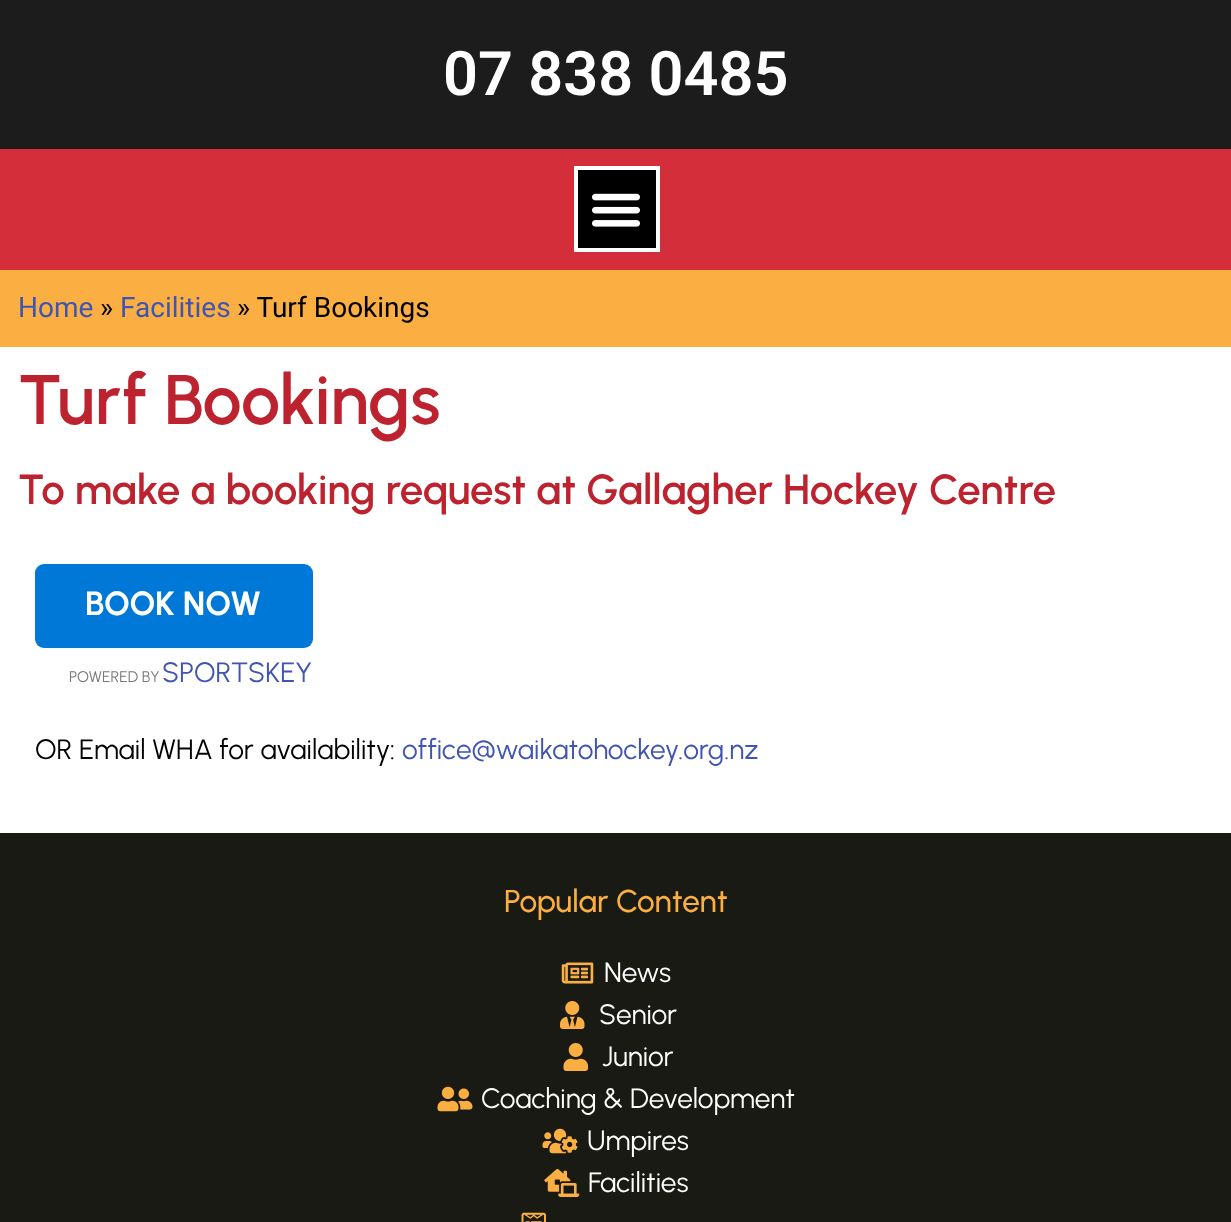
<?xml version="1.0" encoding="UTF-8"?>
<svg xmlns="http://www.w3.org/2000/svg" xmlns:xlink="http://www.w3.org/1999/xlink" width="1231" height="1222">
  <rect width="100%" height="100%" fill="#ffffff" />
  <rect width="1231" height="149" fill="#1c1c1c" />
  <rect y="149" width="1231" height="121" fill="#d42e3b" />
  <rect x="576" y="168" width="82" height="82" fill="#000000" stroke="#ffffff" stroke-width="4" />
  <image x="592" y="193" width="48" height="34" xlink:href="image1.png" />
  <rect y="270" width="1231" height="77" fill="#fbaf42" />
  <rect x="35" y="564" width="278" height="84" rx="9" fill="#0078d7" />
  <rect y="833" width="1231" height="389" fill="#191a14" />
  <image x="561" y="962" width="33" height="22" xlink:href="image2.png" />
  <image x="560" y="1001" width="25" height="28" xlink:href="image3.png" />
  <image x="563" y="1043" width="25" height="28" xlink:href="image4.png" />
  <image x="437" y="1086" width="36" height="26" xlink:href="image5.png" />
  <image x="542" y="1128" width="36" height="26" xlink:href="image6.png" />
  <image x="544" y="1169" width="36" height="28" xlink:href="image7.png" />
  <image x="521" y="1212" width="25" height="10" xlink:href="image8.png" />
  <text x="443" y="95" style="font-family: Roboto; font-size: 61.25px; font-weight: 600; fill: #ffffff">07 838 0485</text>
  <text x="18" y="317" style="font-family: Roboto; font-size: 28px; fill: #4054b2">Home</text>
  <text x="100" y="317" style="font-family: Roboto; font-size: 28px; fill: #000000">»</text>
  <text x="120" y="317" style="font-family: Roboto; font-size: 28px; fill: #4054b2">Facilities</text>
  <text x="237" y="317" style="font-family: Roboto; font-size: 28px; fill: #000000">» Turf Bookings</text>
  <text x="18" y="424" style="font-family: Urbanist; font-size: 70px; font-weight: 600; fill: #bd232f">Turf Bookings</text>
  <text x="18" y="504" style="font-family: Urbanist; font-size: 42px; font-weight: 600; fill: #bd232f">To make a booking request at Gallagher Hockey Centre</text>
  <text x="85" y="615" style="font-family: Urbanist; font-size: 33.5px; font-weight: bold; fill: #ffffff">BOOK NOW</text>
  <text x="69" y="682" style="font-family: Urbanist; font-size: 15.5px; fill: #777777">POWERED BY</text>
  <text x="162" y="682" style="font-family: Urbanist; font-size: 28px; fill: #4054b2">SPORTSKEY</text>
  <text x="35" y="759" style="font-family: Urbanist; font-size: 28px; fill: #000000">OR Email WHA for availability:</text>
  <text x="402" y="759" style="font-family: Urbanist; font-size: 28px; fill: #4054b2">office@waikatohockey.org.nz</text>
  <text x="504" y="912" style="font-family: Urbanist; font-size: 31.5px; font-weight: 500; fill: #fbaf42">Popular Content</text>
  <text x="604" y="982" style="font-family: Urbanist; font-size: 28px; fill: #ffffff">News</text>
  <text x="599" y="1024" style="font-family: Urbanist; font-size: 28px; fill: #ffffff">Senior</text>
  <text x="602" y="1066" style="font-family: Urbanist; font-size: 28px; fill: #ffffff">Junior</text>
  <text x="481" y="1108" style="font-family: Urbanist; font-size: 28px; fill: #ffffff">Coaching &amp; Development</text>
  <text x="587" y="1150" style="font-family: Urbanist; font-size: 28px; fill: #ffffff">Umpires</text>
  <text x="588" y="1192" style="font-family: Urbanist; font-size: 28px; fill: #ffffff">Facilities</text>
</svg>
